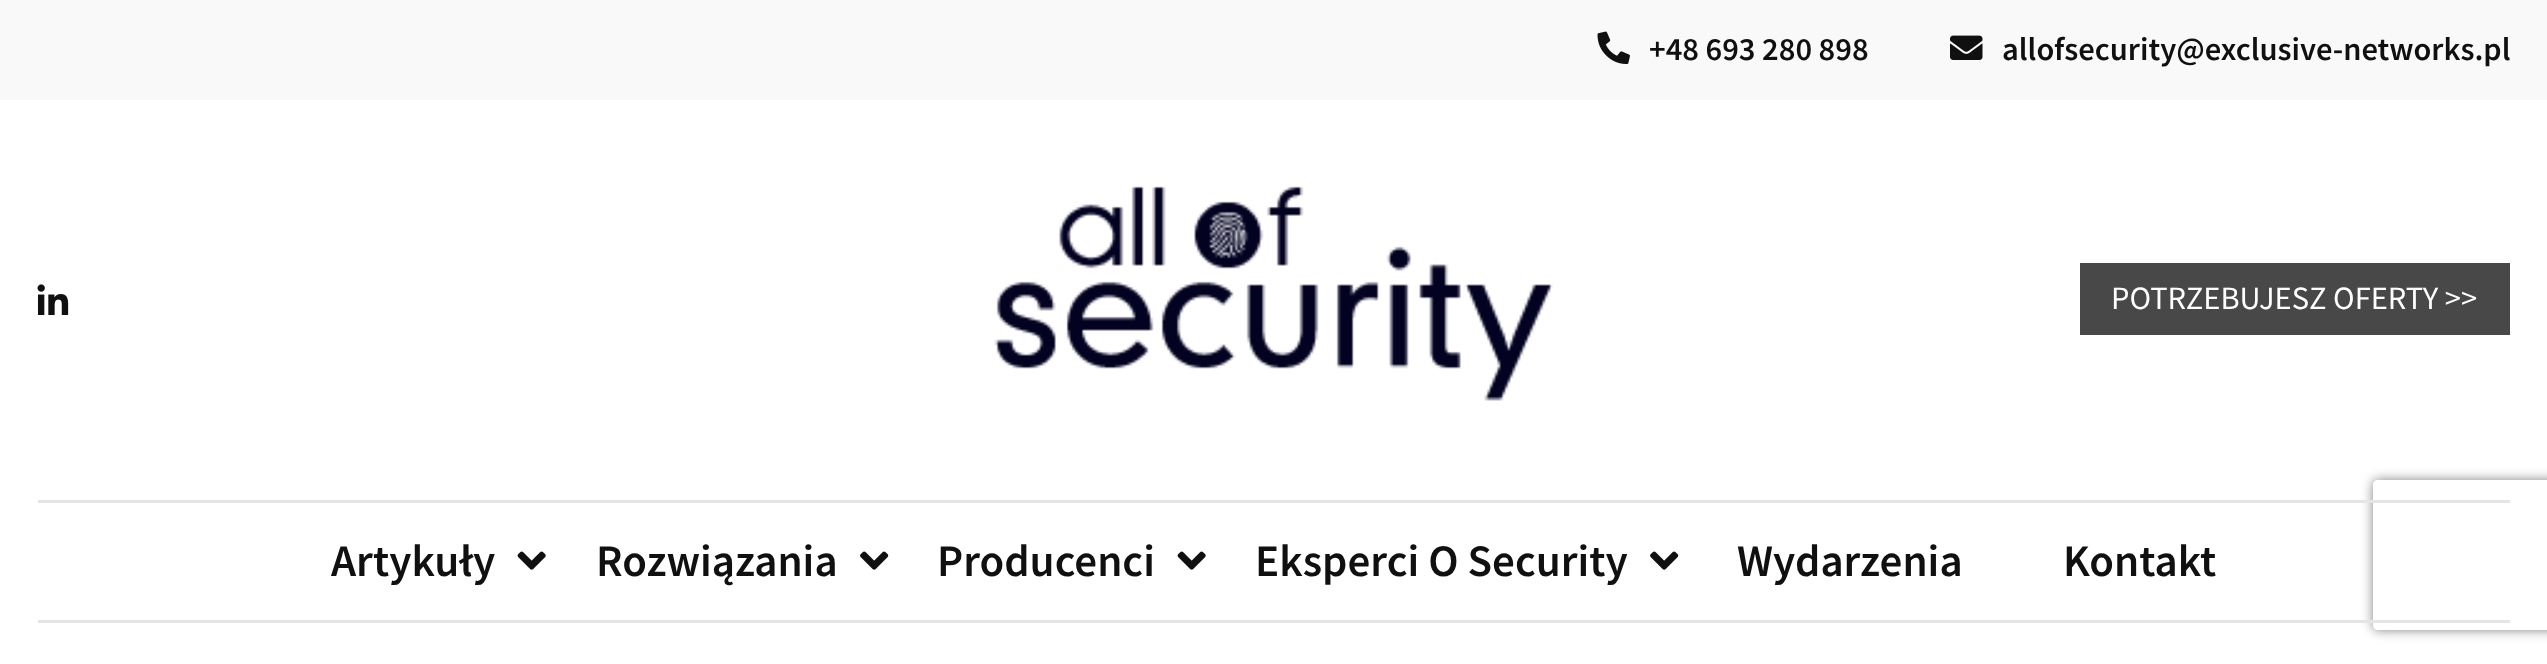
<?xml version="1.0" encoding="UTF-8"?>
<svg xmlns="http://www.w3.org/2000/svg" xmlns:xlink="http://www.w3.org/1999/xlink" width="2547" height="664">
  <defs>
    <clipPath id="clip1"><path d="M 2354 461 h 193 v 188 h -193 z m 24 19 h 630 c 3 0 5 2 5 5 v 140 c 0 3 -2 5 -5 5 h -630 c -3 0 -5 -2 -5 -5 v -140 c 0 -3 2 -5 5 -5 z" clip-rule="evenodd" /></clipPath>
  </defs>
  <rect width="100%" height="100%" fill="#ffffff" />
  <rect width="2547" height="100" fill="#f9f9f9" />
  <image x="1597" y="31" width="33" height="34" xlink:href="image1.png" />
  <image x="1950" y="35" width="33" height="25" xlink:href="image2.png" />
  <image x="37" y="284" width="32" height="31" xlink:href="image3.png" />
  <image x="994" y="186" width="559" height="215" xlink:href="image4.png" />
  <rect x="2080" y="263" width="430" height="72" fill="#484848" />
  <g clip-path="url(#clip1)">
    <rect x="2373" y="480" width="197" height="150" rx="5" fill="#808080" filter="blur(6px)" />
  </g>
  <rect x="38" y="500" width="2472" height="3" fill="#e5e5e5" />
  <rect x="38" y="620" width="2472" height="3" fill="#e5e5e5" />
  <image x="517" y="551" width="29" height="19" xlink:href="image5.png" />
  <image x="860" y="551" width="29" height="19" xlink:href="image6.png" />
  <image x="1177" y="551" width="29" height="19" xlink:href="image5.png" />
  <image x="1650" y="551" width="29" height="19" xlink:href="image6.png" />
  <text x="1649" y="60" style="font-family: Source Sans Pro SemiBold; font-size: 32.5px; font-weight: 600; fill: #101010">+48 693 280 898</text>
  <text x="2002" y="60" style="font-family: Source Sans Pro SemiBold; font-size: 32.5px; font-weight: 600; fill: #101010">allofsecurity@exclusive-networks.pl</text>
  <text x="2111" y="309" style="font-family: Source Sans Pro; font-size: 32.5px; fill: #ffffff">POTRZEBUJESZ OFERTY &gt;&gt;</text>
  <text x="331" y="576" style="font-family: Source Sans Pro SemiBold; font-size: 45px; font-weight: 600; fill: #101010">Artykuły</text>
  <text x="596" y="576" style="font-family: Source Sans Pro SemiBold; font-size: 45px; font-weight: 600; fill: #101010">Rozwiązania</text>
  <text x="937" y="576" style="font-family: Source Sans Pro SemiBold; font-size: 45px; font-weight: 600; fill: #101010">Producenci</text>
  <text x="1255" y="576" style="font-family: Source Sans Pro SemiBold; font-size: 45px; font-weight: 600; fill: #101010">Eksperci O Security</text>
  <text x="1737" y="576" style="font-family: Source Sans Pro SemiBold; font-size: 45px; font-weight: 600; fill: #101010">Wydarzenia</text>
  <text x="2063" y="576" style="font-family: Source Sans Pro SemiBold; font-size: 45px; font-weight: 600; fill: #101010">Kontakt</text>
</svg>
